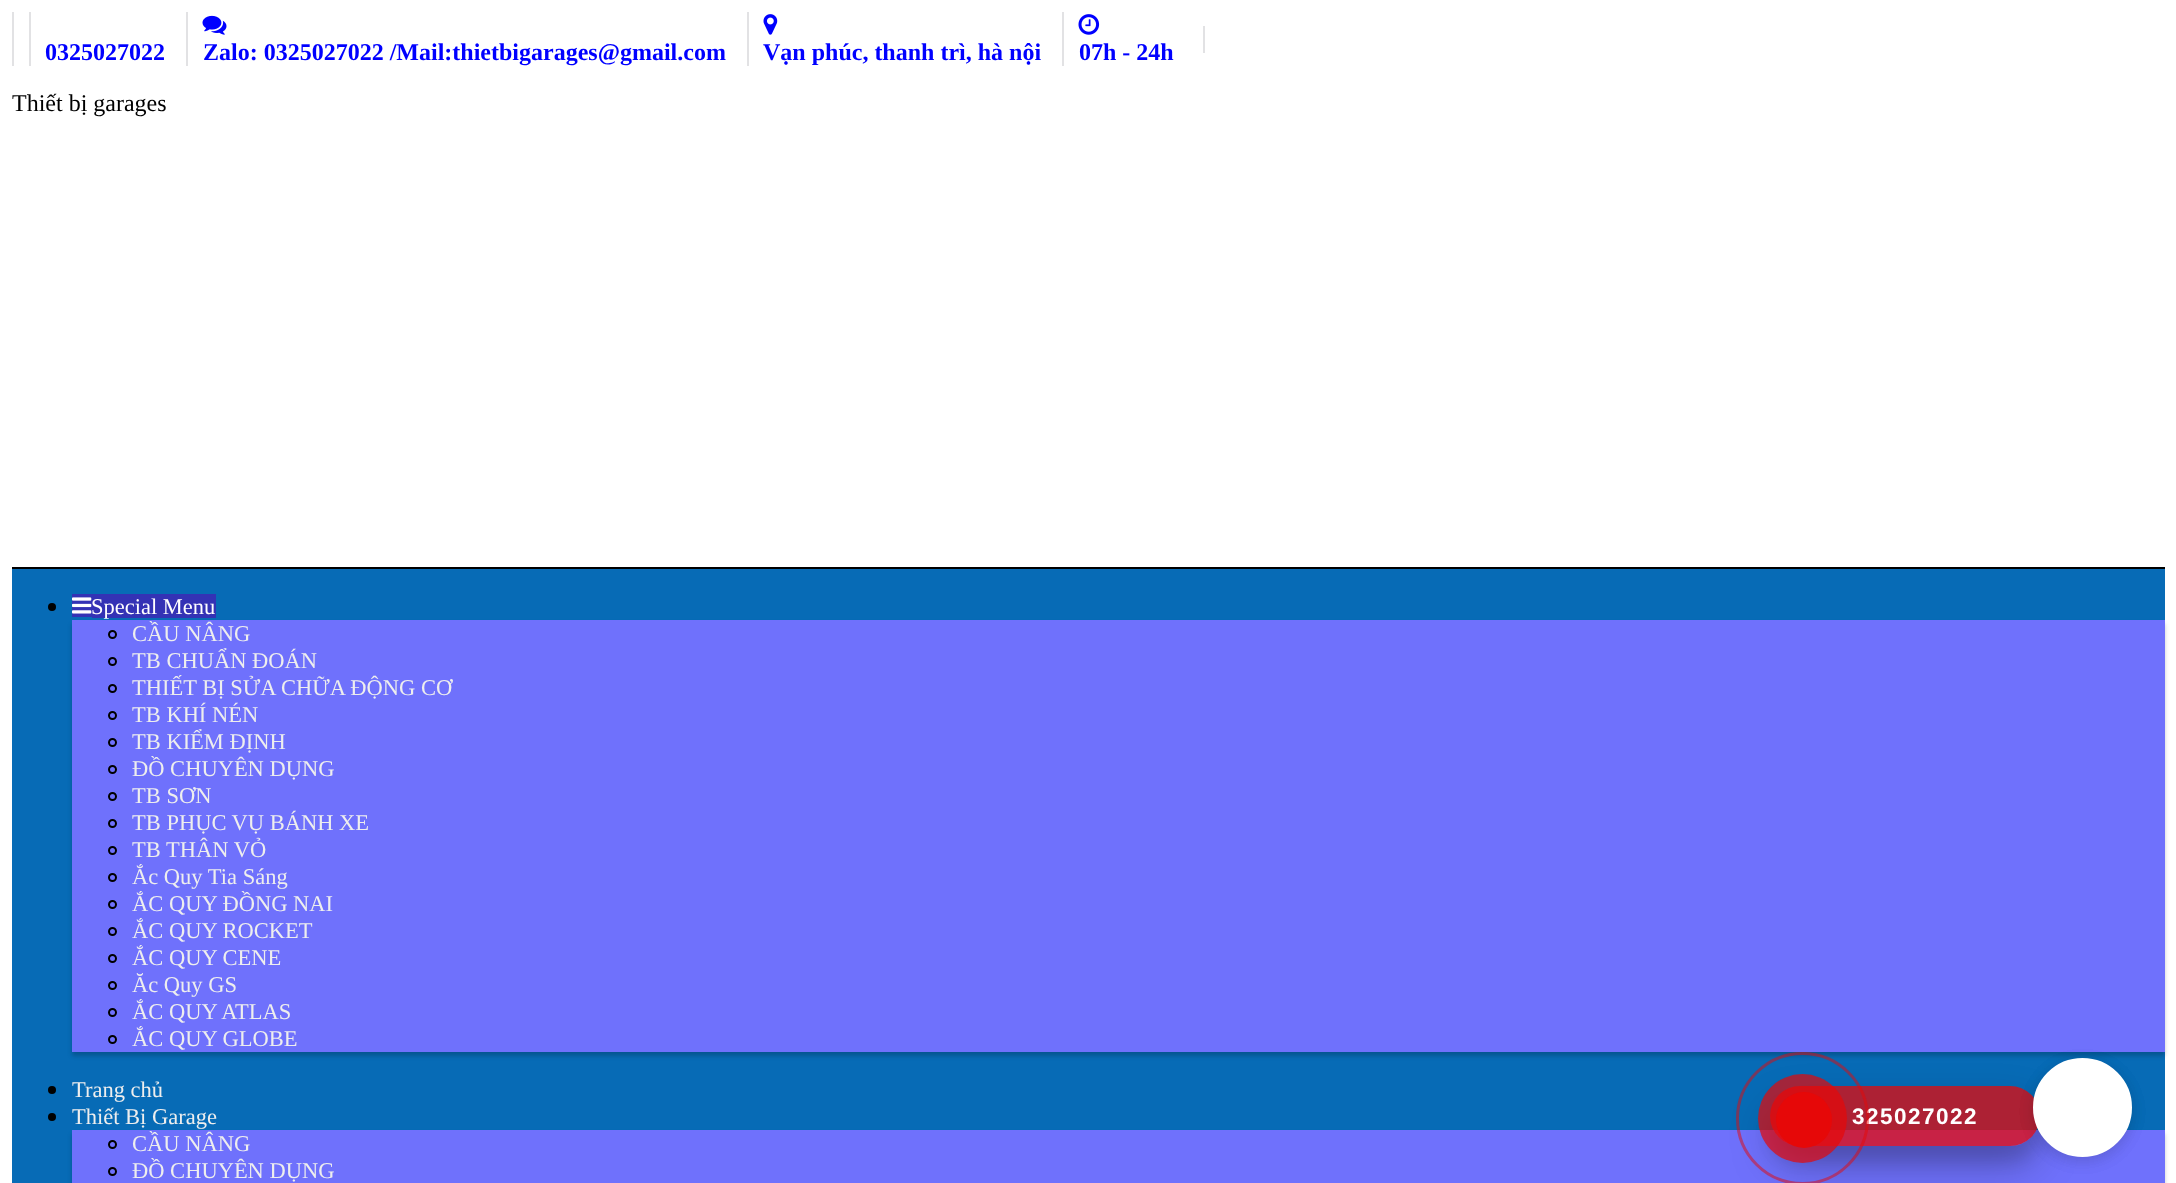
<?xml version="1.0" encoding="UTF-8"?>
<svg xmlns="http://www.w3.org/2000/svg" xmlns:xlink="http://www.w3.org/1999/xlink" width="2176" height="1183">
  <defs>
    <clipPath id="clip1"><path d="M 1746 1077 h 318 v 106 h -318 z m 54 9 h 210 c 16.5 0 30 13.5 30 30 c 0 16.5 -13.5 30 -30 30 h -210 c -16.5 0 -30 -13.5 -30 -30 c 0 -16.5 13.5 -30 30 -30 z" clip-rule="evenodd" /></clipPath>
    <clipPath id="clip2"><path d="M 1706 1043 h 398 v 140 h -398 z m 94 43 h 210 c 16.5 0 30 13.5 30 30 c 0 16.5 -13.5 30 -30 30 h -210 c -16.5 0 -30 -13.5 -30 -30 c 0 -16.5 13.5 -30 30 -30 z" clip-rule="evenodd" /></clipPath>
  </defs>
  <rect width="100%" height="100%" fill="#ffffff" />
  <rect x="12" y="12" width="2" height="54" fill="#e2e2e4" />
  <rect x="29" y="12" width="2" height="54" fill="#e2e2e4" />
  <rect x="186" y="12" width="2" height="54" fill="#e2e2e4" />
  <image x="202" y="15" width="25" height="20" xlink:href="image1.png" />
  <rect x="747" y="12" width="2" height="54" fill="#e2e2e4" />
  <image x="763" y="14" width="15" height="21" xlink:href="image2.png" />
  <rect x="1062" y="12" width="2" height="54" fill="#e2e2e4" />
  <image x="1078" y="14" width="22" height="21" xlink:href="image3.png" />
  <rect x="1203" y="26" width="2" height="27" fill="#e2e2e4" />
  <rect x="12" y="569" width="2153" height="614" fill="#076bb6" />
  <rect x="12" y="567" width="2153" height="2" fill="#000000" />
  <circle cx="52" cy="607" r="4" fill="#000000" />
  <rect x="72" y="594" width="20" height="23" fill="#3432b5" />
  <rect x="72" y="624" width="2093" height="432" fill="#000000" fill-opacity="0.2" filter="blur(2px)" />
  <rect x="92" y="594" width="124" height="24" fill="#3432b5" />
  <image x="72" y="597" width="20" height="17" xlink:href="image4.png" />
  <rect x="72" y="620" width="2093" height="432" fill="#6f71fc" />
  <circle cx="112.5" cy="634.5" r="3.5" fill="none" stroke="#000000" stroke-width="2" />
  <circle cx="112.5" cy="661.5" r="3.5" fill="none" stroke="#000000" stroke-width="2" />
  <circle cx="112.5" cy="688.5" r="3.5" fill="none" stroke="#000000" stroke-width="2" />
  <circle cx="112.5" cy="715.5" r="3.5" fill="none" stroke="#000000" stroke-width="2" />
  <circle cx="112.5" cy="742.5" r="3.5" fill="none" stroke="#000000" stroke-width="2" />
  <circle cx="112.5" cy="769.5" r="3.5" fill="none" stroke="#000000" stroke-width="2" />
  <circle cx="112.5" cy="796.5" r="3.5" fill="none" stroke="#000000" stroke-width="2" />
  <circle cx="112.5" cy="823.5" r="3.5" fill="none" stroke="#000000" stroke-width="2" />
  <circle cx="112.5" cy="850.5" r="3.5" fill="none" stroke="#000000" stroke-width="2" />
  <circle cx="112.5" cy="877.5" r="3.5" fill="none" stroke="#000000" stroke-width="2" />
  <circle cx="112.5" cy="904.5" r="3.5" fill="none" stroke="#000000" stroke-width="2" />
  <circle cx="112.5" cy="931.5" r="3.5" fill="none" stroke="#000000" stroke-width="2" />
  <circle cx="112.5" cy="958.5" r="3.5" fill="none" stroke="#000000" stroke-width="2" />
  <circle cx="112.5" cy="985.5" r="3.5" fill="none" stroke="#000000" stroke-width="2" />
  <circle cx="112.5" cy="1012.5" r="3.5" fill="none" stroke="#000000" stroke-width="2" />
  <circle cx="112.5" cy="1039.5" r="3.5" fill="none" stroke="#000000" stroke-width="2" />
  <circle cx="52" cy="1090" r="4" fill="#000000" />
  <circle cx="52" cy="1117" r="4" fill="#000000" />
  <rect x="72" y="1134" width="2093" height="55" fill="#000000" fill-opacity="0.2" filter="blur(2px)" />
  <rect x="72" y="1130" width="2093" height="53" fill="#6f71fc" />
  <circle cx="112.5" cy="1144.5" r="3.5" fill="none" stroke="#000000" stroke-width="2" />
  <circle cx="112.5" cy="1171.5" r="3.5" fill="none" stroke="#000000" stroke-width="2" />
  <g clip-path="url(#clip1)">
    <rect x="1770" y="1101" width="270" height="60" rx="30" fill="#000000" fill-opacity="0.1" filter="blur(7.5px)" />
  </g>
  <g clip-path="url(#clip2)">
    <rect x="1770" y="1107" width="270" height="60" rx="30" fill="#000000" fill-opacity="0.25" filter="blur(21px)" />
  </g>
  <rect x="1770" y="1086" width="270" height="60" rx="30" fill="#e60808" fill-opacity="0.75" />
  <rect x="2033" y="1062" width="99" height="99" rx="49.5" fill="#000000" fill-opacity="0.08" filter="blur(7.5px)" />
  <rect x="2033" y="1062" width="99" height="99" rx="49.5" fill="#000000" fill-opacity="0.08" filter="blur(7.5px)" />
  <circle cx="2082.5" cy="1107.5" r="45.5" fill="#ffffff" stroke="#ffffff" stroke-width="8" />
  <text x="45" y="60" style="font-family: Liberation Serif; font-size: 24px; font-weight: bold; fill: #0000ff">0325027022</text>
  <text x="203" y="60" style="font-family: Liberation Serif; font-size: 24px; font-weight: bold; fill: #0000ff">Zalo: 0325027022 /Mail:thietbigarages@gmail.com</text>
  <text x="763" y="60" style="font-family: Liberation Serif; font-size: 24px; font-weight: bold; fill: #0000ff">Vạn phúc, thanh trì, hà nội</text>
  <text x="1079" y="60" style="font-family: Liberation Serif; font-size: 24px; font-weight: bold; fill: #0000ff">07h - 24h</text>
  <text x="12" y="111" style="font-family: Liberation Serif; font-size: 24px; fill: #000000">Thiết bị garages</text>
  <text x="91" y="614" style="font-family: Liberation Serif; font-size: 22.5px; fill: #ffffff">Special Menu</text>
  <text x="132" y="641" style="font-family: Liberation Serif; font-size: 22.5px; fill: #eeeeee">CẦU NÂNG</text>
  <text x="132" y="668" style="font-family: Liberation Serif; font-size: 22.5px; fill: #eeeeee">TB CHUẨN ĐOÁN</text>
  <text x="132" y="695" style="font-family: Liberation Serif; font-size: 22.5px; fill: #eeeeee">THIẾT BỊ SỬA CHỮA ĐỘNG CƠ</text>
  <text x="132" y="722" style="font-family: Liberation Serif; font-size: 22.5px; fill: #eeeeee">TB KHÍ NÉN</text>
  <text x="132" y="749" style="font-family: Liberation Serif; font-size: 22.5px; fill: #eeeeee">TB KIỂM ĐỊNH</text>
  <text x="132" y="776" style="font-family: Liberation Serif; font-size: 22.5px; fill: #eeeeee">ĐỒ CHUYÊN DỤNG</text>
  <text x="132" y="803" style="font-family: Liberation Serif; font-size: 22.5px; fill: #eeeeee">TB SƠN</text>
  <text x="132" y="830" style="font-family: Liberation Serif; font-size: 22.5px; fill: #eeeeee">TB PHỤC VỤ BÁNH XE</text>
  <text x="132" y="857" style="font-family: Liberation Serif; font-size: 22.5px; fill: #eeeeee">TB THÂN VỎ</text>
  <text x="132" y="884" style="font-family: Liberation Serif; font-size: 22.5px; fill: #eeeeee">Ắc Quy Tia Sáng</text>
  <text x="132" y="911" style="font-family: Liberation Serif; font-size: 22.5px; fill: #eeeeee">ẮC QUY ĐỒNG NAI</text>
  <text x="132" y="938" style="font-family: Liberation Serif; font-size: 22.5px; fill: #eeeeee">ẮC QUY ROCKET</text>
  <text x="132" y="965" style="font-family: Liberation Serif; font-size: 22.5px; fill: #eeeeee">ẮC QUY CENE</text>
  <text x="132" y="992" style="font-family: Liberation Serif; font-size: 22.5px; fill: #eeeeee">Ăc Quy GS</text>
  <text x="132" y="1019" style="font-family: Liberation Serif; font-size: 22.5px; fill: #eeeeee">ẮC QUY ATLAS</text>
  <text x="132" y="1046" style="font-family: Liberation Serif; font-size: 22.5px; fill: #eeeeee">ẮC QUY GLOBE</text>
  <text x="72" y="1097" style="font-family: Liberation Serif; font-size: 22.5px; fill: #eeeeee">Trang chủ</text>
  <text x="72" y="1124" style="font-family: Liberation Serif; font-size: 22.5px; fill: #eeeeee">Thiết Bị Garage</text>
  <text x="132" y="1151" style="font-family: Liberation Serif; font-size: 22.5px; fill: #eeeeee">CẦU NÂNG</text>
  <text x="132" y="1178" style="font-family: Liberation Serif; font-size: 22.5px; fill: #eeeeee">ĐỒ CHUYÊN DỤNG</text>
  <text x="1852" y="1124" style="font-family: Liberation Sans; font-size: 22.5px; font-weight: bold; letter-spacing: 1.5px; fill: #ffffff">325027022</text>
  <circle cx="1802.5" cy="1118.5" r="65" fill="none" stroke="#e60808" stroke-opacity="0.5" stroke-width="3" />
  <circle cx="1802.5" cy="1118.5" r="44.5" fill="#e60808" fill-opacity="0.7" />
  <circle cx="1804" cy="1120" r="28" fill="#e60808" />
</svg>
